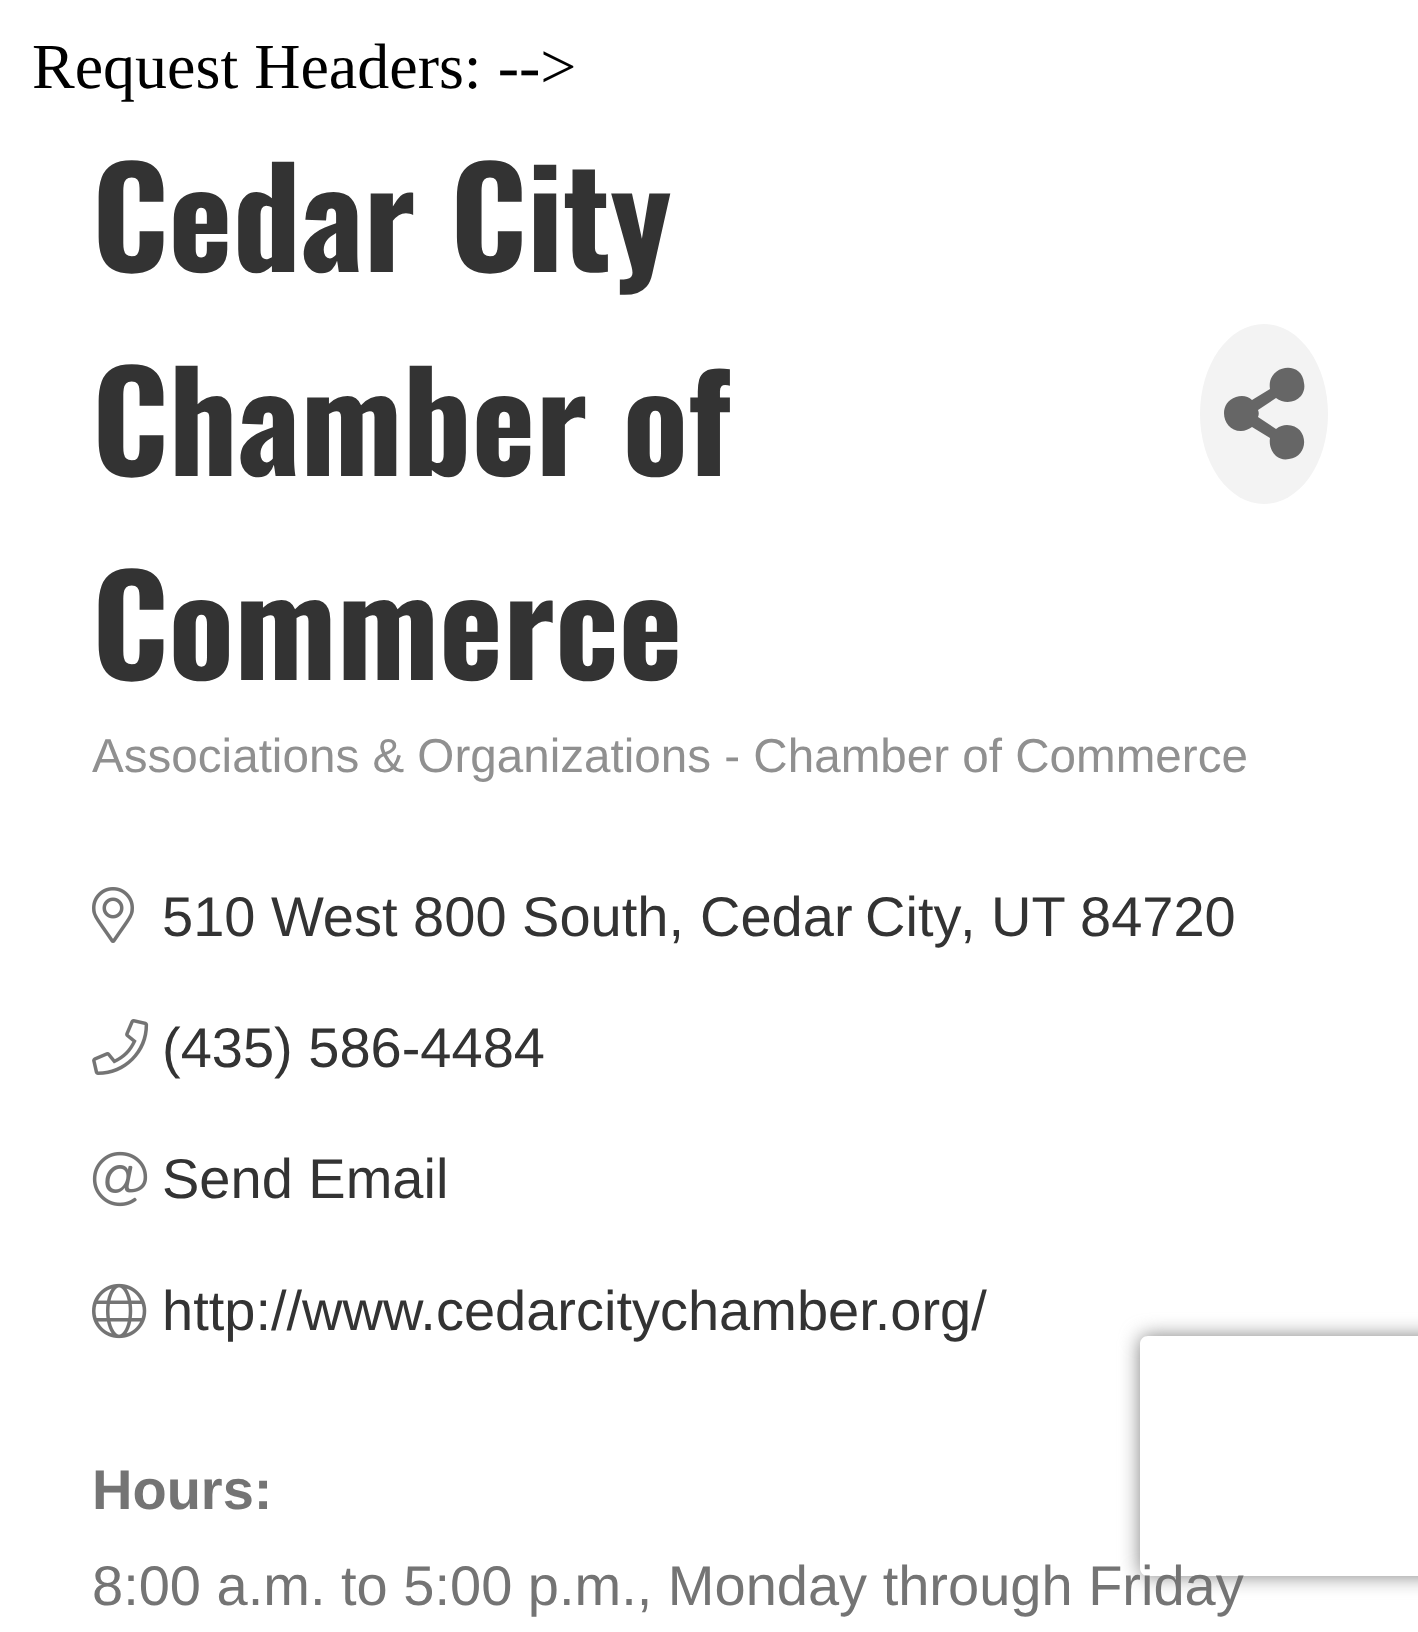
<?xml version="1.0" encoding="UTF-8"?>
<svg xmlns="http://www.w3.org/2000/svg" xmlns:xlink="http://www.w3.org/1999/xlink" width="1418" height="1632">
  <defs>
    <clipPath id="clip1"><path d="M 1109 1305 h 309 v 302 h -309 z m 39 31 h 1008 c 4.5 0 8 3.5 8 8 v 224 c 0 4.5 -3.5 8 -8 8 h -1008 c -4.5 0 -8 -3.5 -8 -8 v -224 c 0 -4.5 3.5 -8 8 -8 z" clip-rule="evenodd" /></clipPath>
  </defs>
  <rect width="100%" height="100%" fill="#ffffff" />
  <ellipse cx="1264" cy="414" rx="64" ry="90" fill="#f3f3f3" />
  <path d="M 1287 425 c 22 0 23 32 2 34 c -5 1 -9 0 -13 -3 c -5 -5 -7 -11 -6 -18 l -18 -11 c -3 2 -7 4 -11 4 c -19 0 -24 -28 -5 -34 c 6 -2 12 -1 16 3 l 18 -11 c -4 -24 32 -30 34 -6 c 1 5 0 9 -3 13 c -6 7 -17 8 -25 2 l -18 12 c 1 2 1 5 0 7 l 18 12 c 4 -3 7 -4 11 -4 z" fill="#666666" />
  <image x="92" y="887" width="42" height="56" xlink:href="image1.png" />
  <image x="92" y="1019" width="57" height="56" xlink:href="image2.png" />
  <image x="92" y="1151" width="56" height="56" xlink:href="image3.png" />
  <image x="92" y="1283" width="55" height="56" xlink:href="image4.png" />
  <g clip-path="url(#clip1)">
    <rect x="1140" y="1336" width="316" height="240" rx="8" fill="#808080" filter="blur(10px)" />
  </g>
  <text x="32" y="88" style="font-family: Liberation Serif; font-size: 64px; fill: #000000">Request Headers: --&gt;</text>
  <text x="92" y="272" style="font-family: Oswald; font-size: 136px; font-weight: bold; fill: #333333">Cedar City</text>
  <text x="92" y="476" style="font-family: Oswald; font-size: 136px; font-weight: bold; fill: #333333">Chamber of</text>
  <text x="92" y="680" style="font-family: Oswald; font-size: 136px; font-weight: bold; fill: #333333">Commerce</text>
  <text x="92" y="772" style="font-family: Liberation Sans; font-size: 47.6px; fill: #909090">Associations &amp; Organizations - Chamber of Commerce</text>
  <text x="162" y="936" style="font-family: Liberation Sans; font-size: 56px; fill: #333333">510 West 800 South,</text>
  <text x="700" y="936" word-spacing="-3" style="font-family: Liberation Sans; font-size: 56px; fill: #333333">Cedar City</text>
  <text x="960" y="936" style="font-family: Liberation Sans; font-size: 56px; fill: #333333">, UT</text>
  <text x="1080" y="936" style="font-family: Liberation Sans; font-size: 56px; fill: #333333">84720</text>
  <text x="162" y="1067" style="font-family: Liberation Sans; font-size: 56px; fill: #333333">(435) 586-4484</text>
  <text x="162" y="1198" style="font-family: Liberation Sans; font-size: 56px; fill: #333333">Send Email</text>
  <text x="162" y="1330" style="font-family: Liberation Sans; font-size: 56px; fill: #333333">http://www.cedarcitychamber.org/</text>
  <text x="92" y="1509" style="font-family: Liberation Sans; font-size: 56px; font-weight: bold; fill: #747474">Hours:</text>
  <text x="92" y="1605" style="font-family: Liberation Sans; font-size: 56px; fill: #747474">8:00 a.m. to 5:00 p.m., Monday through Friday</text>
</svg>
